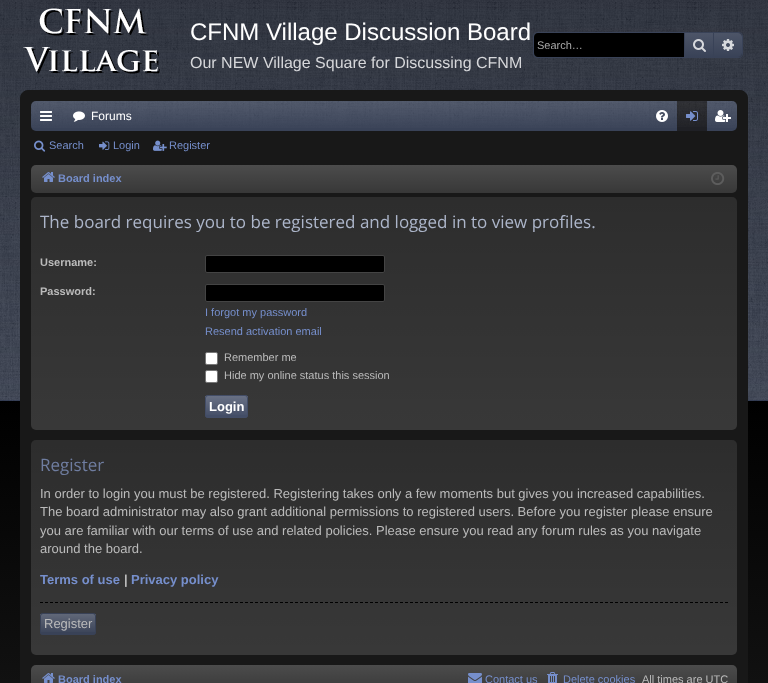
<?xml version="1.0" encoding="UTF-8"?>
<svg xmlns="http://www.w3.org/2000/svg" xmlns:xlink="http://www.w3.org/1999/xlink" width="768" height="683">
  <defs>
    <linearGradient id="g1" gradientUnits="userSpaceOnUse" x1="384" y1="0" x2="384" y2="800"><stop offset="0" stop-color="#000000" /><stop offset="0.5" stop-color="#000000" /><stop offset="1" stop-color="#181818" /></linearGradient>
    <linearGradient id="g2" gradientUnits="userSpaceOnUse" x1="699" y1="33" x2="699" y2="57"><stop offset="0" stop-color="#4d5568" /><stop offset="1" stop-color="#394257" /></linearGradient>
    <linearGradient id="g3" gradientUnits="userSpaceOnUse" x1="728" y1="33" x2="728" y2="57"><stop offset="0" stop-color="#ffffff" stop-opacity="0.1" /><stop offset="1" stop-color="#ffffff" stop-opacity="0" /></linearGradient>
    <linearGradient id="g4" gradientUnits="userSpaceOnUse" x1="384" y1="165" x2="384" y2="193"><stop offset="0" stop-color="#ffffff" stop-opacity="0.1" /><stop offset="1" stop-color="#ffffff" stop-opacity="0" /></linearGradient>
    <linearGradient id="g5" gradientUnits="userSpaceOnUse" x1="384" y1="197" x2="384" y2="430"><stop offset="0" stop-color="#000000" stop-opacity="0.2" /><stop offset="1" stop-color="#000000" stop-opacity="0" /></linearGradient>
    <linearGradient id="g6" gradientUnits="userSpaceOnUse" x1="227" y1="396" x2="227" y2="417"><stop offset="0" stop-color="#ffffff" stop-opacity="0.2" /><stop offset="1" stop-color="#ffffff" stop-opacity="0" /></linearGradient>
    <linearGradient id="g7" gradientUnits="userSpaceOnUse" x1="384" y1="440" x2="384" y2="655"><stop offset="0" stop-color="#000000" stop-opacity="0.2" /><stop offset="1" stop-color="#000000" stop-opacity="0" /></linearGradient>
    <linearGradient id="g8" gradientUnits="userSpaceOnUse" x1="68" y1="614" x2="68" y2="634"><stop offset="0" stop-color="#ffffff" stop-opacity="0.2" /><stop offset="1" stop-color="#ffffff" stop-opacity="0" /></linearGradient>
    <linearGradient id="g9" gradientUnits="userSpaceOnUse" x1="384" y1="665" x2="384" y2="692"><stop offset="0" stop-color="#ffffff" stop-opacity="0.1" /><stop offset="1" stop-color="#ffffff" stop-opacity="0" /></linearGradient>
  </defs>
  <rect width="100%" height="100%" fill="#ffffff" />
  <rect y="401" width="768" height="282" fill="url(#g1)" />
  <rect width="768" height="401" fill="#373e4e" />
  <image x="0" y="0" width="768" height="401" xlink:href="image1.png" />
  <rect y="400" width="768" height="1" fill="#3c59a0" fill-opacity="0.2" />
  <image x="23" y="8" width="137" height="66" xlink:href="image2.png" />
  <rect x="533.5" y="32.5" width="209" height="25" rx="3.5" fill="none" stroke="#394257" />
  <path d="M 538 33 h 146 v 24 h -146 c -2 0 -4 -2 -4 -4 v -16 c 0 -2 2 -4 4 -4 z" fill="#000000" />
  <rect x="685" y="33" width="28" height="24" fill="url(#g2)" />
  <rect x="713" y="33" width="1" height="24" fill="#394257" />
  <rect x="684" y="33" width="1" height="24" fill="#394257" />
  <image x="693" y="39" width="13" height="13" xlink:href="image3.png" />
  <path d="M 714 33 h 24 c 2 0 4 2 4 4 v 16 c 0 2 -2 4 -4 4 h -24 z" fill="#394257" />
  <path d="M 714 33 h 24 c 2 0 4 2 4 4 v 16 c 0 2 -2 4 -4 4 h -24 z" fill="url(#g3)" />
  <image x="722" y="39" width="12" height="12" xlink:href="image4.png" />
  <rect x="20.5" y="90.5" width="727" height="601" rx="7.5" fill="#181818" stroke="#181818" />
  <rect x="31" y="101" width="706" height="30" rx="5" fill="#394257" />
  <image x="31" y="101" width="706" height="27" xlink:href="image5.png" />
  <image x="40" y="111" width="12" height="10" xlink:href="image6.png" />
  <image x="73" y="111" width="12" height="11" xlink:href="image7.png" />
  <image x="656" y="110" width="12" height="12" xlink:href="image8.png" />
  <rect x="677" y="101" width="30" height="30" fill="#1f2025" />
  <image x="677" y="101" width="30" height="26" xlink:href="image9.png" />
  <image x="686" y="111" width="12" height="10" xlink:href="image10.png" />
  <image x="715" y="110" width="16" height="12" xlink:href="image11.png" />
  <image x="34" y="140" width="12" height="12" xlink:href="image12.png" />
  <image x="99" y="141" width="11" height="9" xlink:href="image13.png" />
  <image x="153" y="140" width="14" height="11" xlink:href="image14.png" />
  <rect x="31" y="165" width="706" height="28" rx="5" fill="#383838" />
  <rect x="31" y="165" width="706" height="28" rx="5" fill="url(#g4)" />
  <image x="42" y="172" width="13" height="10" xlink:href="image15.png" />
  <image x="711" y="172" width="14" height="13" xlink:href="image16.png" />
  <rect x="31" y="197" width="706" height="233" rx="5" fill="#383838" />
  <rect x="31" y="197" width="706" height="233" rx="5" fill="url(#g5)" />
  <rect x="205.5" y="255.5" width="179" height="17" rx="1.5" fill="#000000" stroke="#444444" />
  <rect x="205.5" y="284.5" width="179" height="17" rx="1.5" fill="#000000" stroke="#444444" />
  <rect x="205.5" y="352.5" width="12" height="12" rx="1.5" fill="#ffffff" stroke="#767676" />
  <rect x="205.5" y="370.5" width="12" height="12" rx="1.5" fill="#ffffff" stroke="#767676" />
  <rect x="205" y="395" width="43" height="23" rx="3" fill="#434d66" />
  <rect x="205" y="396" width="43" height="19" fill="url(#g6)" />
  <rect x="205.5" y="395.5" width="42" height="22" rx="2.5" fill="none" stroke="#434d66" />
  <rect x="31" y="440" width="706" height="215" rx="5" fill="#383838" />
  <rect x="31" y="440" width="706" height="215" rx="5" fill="url(#g7)" />
  <path d="M 40 602.5 h 688" fill="none" stroke="#000000" stroke-dasharray="3 2" />
  <rect x="40" y="613" width="56" height="22" rx="3" fill="#394257" />
  <rect x="40" y="614" width="56" height="18" fill="url(#g8)" />
  <rect x="40.5" y="613.5" width="55" height="21" rx="2.5" fill="none" stroke="#394257" />
  <rect x="31" y="665" width="706" height="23" rx="5" fill="#383838" />
  <rect x="31" y="665" width="706" height="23" rx="5" fill="url(#g9)" />
  <image x="42" y="673" width="13" height="10" xlink:href="image17.png" />
  <image x="468" y="673" width="14" height="10" xlink:href="image18.png" />
  <image x="547" y="672" width="11" height="11" xlink:href="image19.png" />
  <text x="190" y="40" style="font-family: Liberation Sans; font-size: 24px; fill: #ffffff">CFNM Village Discussion Board</text>
  <text x="190" y="68" style="font-family: Liberation Sans; font-size: 16px; fill: #d6d7da">Our NEW Village Square for Discussing CFNM</text>
  <text x="537" y="49" style="font-family: Liberation Sans; font-size: 11px; fill: #a8a8a8">Search…</text>
  <text x="91" y="120" style="font-family: Liberation Sans; font-size: 12px; fill: #ffffff">Forums</text>
  <text x="49" y="149" style="font-family: Liberation Sans; font-size: 11px; fill: #768fcc">Search</text>
  <text x="113" y="149" style="font-family: Liberation Sans; font-size: 11px; fill: #768fcc">Login</text>
  <text x="169" y="149" style="font-family: Liberation Sans; font-size: 11px; fill: #768fcc">Register</text>
  <text x="58" y="182" style="font-family: Liberation Sans; font-size: 11px; font-weight: bold; fill: #768fcc">Board index</text>
  <text x="40" y="228" style="font-family: Open Sans; font-size: 17px; fill: #acb5c9">The board requires you to be registered and logged in to view profiles.</text>
  <text x="40" y="266" style="font-family: Liberation Sans; font-size: 11px; font-weight: bold; fill: #bbbbbb">Username:</text>
  <text x="40" y="295" style="font-family: Liberation Sans; font-size: 11px; font-weight: bold; fill: #bbbbbb">Password:</text>
  <text x="205" y="316" style="font-family: Liberation Sans; font-size: 11px; fill: #768fcc">I forgot my password</text>
  <text x="205" y="335" style="font-family: Liberation Sans; font-size: 11px; fill: #768fcc">Resend activation email</text>
  <text x="224" y="361" style="font-family: Liberation Sans; font-size: 11px; fill: #bbbbbb">Remember me</text>
  <text x="224" y="379" style="font-family: Liberation Sans; font-size: 11px; fill: #bbbbbb">Hide my online status this session</text>
  <text x="209" y="411" style="font-family: Liberation Sans; font-size: 13px; font-weight: bold; fill: #ffffff">Login</text>
  <text x="40" y="471" style="font-family: Open Sans; font-size: 17px; fill: #6f7da0">Register</text>
  <text x="40" y="498" style="font-family: Liberation Sans; font-size: 13px; fill: #bbbbbb">In order to login you must be registered. Registering takes only a few moments but gives you increased capabilities.</text>
  <text x="40" y="516" style="font-family: Liberation Sans; font-size: 13px; fill: #bbbbbb">The board administrator may also grant additional permissions to registered users. Before you register please ensure</text>
  <text x="40" y="535" style="font-family: Liberation Sans; font-size: 13px; fill: #bbbbbb">you are familiar with our terms of use and related policies. Please ensure you read any forum rules as you navigate</text>
  <text x="40" y="553" style="font-family: Liberation Sans; font-size: 13px; fill: #bbbbbb">around the board.</text>
  <text x="40" y="584" style="font-family: Liberation Sans; font-size: 13px; font-weight: bold; fill: #768fcc">Terms of use</text>
  <text x="124" y="584" style="font-family: Liberation Sans; font-size: 13px; font-weight: bold; fill: #bbbbbb">|</text>
  <text x="131" y="584" style="font-family: Liberation Sans; font-size: 13px; font-weight: bold; fill: #768fcc">Privacy policy</text>
  <text x="44" y="628" style="font-family: Liberation Sans; font-size: 13px; fill: #bbbbbb">Register</text>
  <text x="58" y="683" style="font-family: Liberation Sans; font-size: 11px; font-weight: bold; fill: #768fcc">Board index</text>
  <text x="485" y="683" style="font-family: Liberation Sans; font-size: 11px; fill: #768fcc">Contact us</text>
  <text x="563" y="683" style="font-family: Liberation Sans; font-size: 11px; fill: #768fcc">Delete cookies</text>
  <text x="642" y="683" style="font-family: Liberation Sans; font-size: 11px; fill: #bbbbbb">All times are UTC</text>
</svg>
